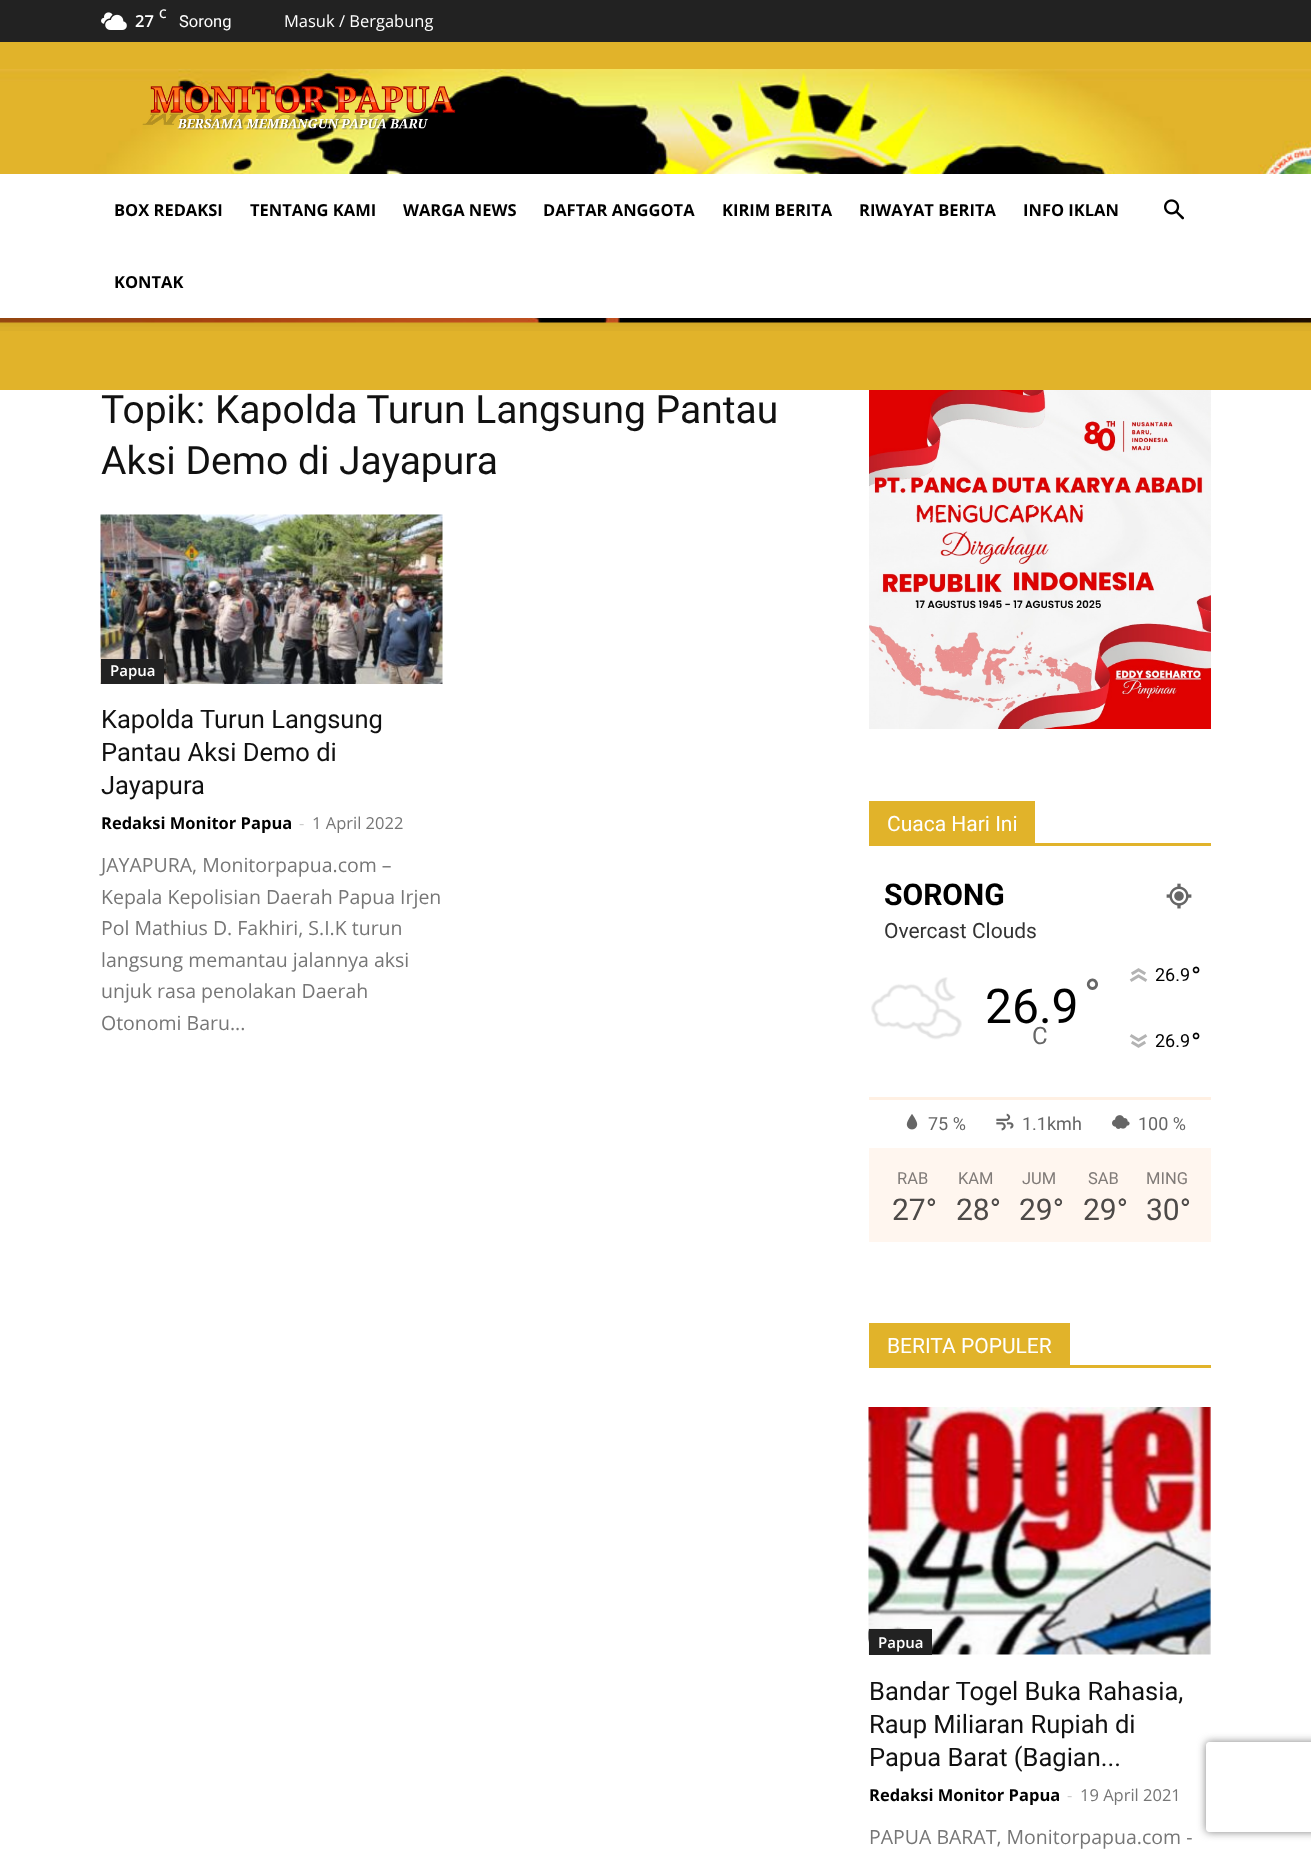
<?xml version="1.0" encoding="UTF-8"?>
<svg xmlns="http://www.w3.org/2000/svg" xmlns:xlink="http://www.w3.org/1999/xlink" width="1311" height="1852">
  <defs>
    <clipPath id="clip1"><path d="M 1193 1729 h 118 v 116 h -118 z m 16 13 h 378 c 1.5 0 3 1.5 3 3 v 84 c 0 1.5 -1.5 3 -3 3 h -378 c -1.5 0 -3 -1.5 -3 -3 v -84 c 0 -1.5 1.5 -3 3 -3 z" clip-rule="evenodd" /></clipPath>
  </defs>
  <rect width="100%" height="100%" fill="#ffffff" />
  <rect width="1311" height="42" fill="#222222" />
  <image x="101" y="12" width="26" height="18" xlink:href="image1.png" />
  <rect y="42" width="1311" height="348" fill="#e1b32a" />
  <image x="0" y="69" width="1311" height="254" xlink:href="image2.png" />
  <image x="142" y="85" width="314" height="45" xlink:href="image3.png" />
  <rect y="174" width="1311" height="144" fill="#ffffff" />
  <image x="1164" y="199" width="20" height="21" xlink:href="image4.png" />
  <image x="0" y="318" width="1311" height="13" xlink:href="image5.png" />
  <image x="100" y="514" width="343" height="170" xlink:href="image6.png" />
  <rect x="101" y="659" width="63" height="25" fill="#222222" />
  <image x="869" y="390" width="342" height="339" xlink:href="image7.png" />
  <rect x="869" y="843" width="342" height="3" fill="#e1b32a" />
  <rect x="869" y="801" width="166" height="42" fill="#e1b32a" />
  <image x="1166" y="883" width="26" height="26" xlink:href="image8.png" />
  <image x="871" y="977" width="91" height="63" xlink:href="image9.png" />
  <image x="1129" y="968" width="19" height="14" xlink:href="image10.png" />
  <image x="1129" y="1034" width="19" height="14" xlink:href="image11.png" />
  <rect x="869" y="1097" width="342" height="3" fill="#fff0e3" />
  <image x="906" y="1114" width="12" height="16" xlink:href="image12.png" />
  <image x="996" y="1113" width="18" height="18" xlink:href="image13.png" />
  <image x="1112" y="1115" width="18" height="14" xlink:href="image14.png" />
  <rect x="869" y="1148" width="342" height="94" fill="#fff6ef" />
  <rect x="869" y="1365" width="342" height="3" fill="#e1b32a" />
  <rect x="869" y="1323" width="201" height="42" fill="#e1b32a" />
  <image x="868" y="1407" width="343" height="248" xlink:href="image15.png" />
  <rect x="869" y="1629" width="63" height="26" fill="#222222" />
  <g clip-path="url(#clip1)">
    <rect x="1206" y="1742" width="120" height="90" rx="3" fill="#808080" filter="blur(4px)" />
  </g>
  <text x="159" y="18" style="font-family: Open Sans; font-size: 12px; font-weight: 600; fill: #ffffff">C</text>
  <text x="135" y="27" style="font-family: Open Sans; font-size: 16.5px; font-weight: 600; fill: #ffffff">27</text>
  <text x="179" y="27" style="font-family: Roboto; font-size: 16.5px; fill: #ffffff">Sorong</text>
  <text x="284" y="27" style="font-family: Open Sans; font-size: 16.5px; fill: #ffffff">Masuk / Bergabung</text>
  <text x="114" y="216" style="font-family: Open Sans; font-size: 16.5px; font-weight: bold; fill: #000000">BOX REDAKSI</text>
  <text x="250" y="216" style="font-family: Open Sans; font-size: 16.5px; font-weight: bold; fill: #000000">TENTANG KAMI</text>
  <text x="403" y="216" style="font-family: Open Sans; font-size: 16.5px; font-weight: bold; fill: #000000">WARGA NEWS</text>
  <text x="543" y="216" style="font-family: Open Sans; font-size: 16.5px; font-weight: bold; fill: #000000">DAFTAR ANGGOTA</text>
  <text x="722" y="216" style="font-family: Open Sans; font-size: 16.5px; font-weight: bold; fill: #000000">KIRIM BERITA</text>
  <text x="859" y="216" style="font-family: Open Sans; font-size: 16.5px; font-weight: bold; fill: #000000">RIWAYAT BERITA</text>
  <text x="1023" y="216" style="font-family: Open Sans; font-size: 16.5px; font-weight: bold; fill: #000000">INFO IKLAN</text>
  <text x="114" y="288" style="font-family: Open Sans; font-size: 16.5px; font-weight: bold; fill: #000000">KONTAK</text>
  <text x="101" y="423" style="font-family: Roboto; font-size: 39px; fill: #111111">Topik: Kapolda Turun Langsung Pantau</text>
  <text x="101" y="474" style="font-family: Roboto; font-size: 39px; fill: #111111">Aksi Demo di Jayapura</text>
  <text x="110" y="676" style="font-family: Open Sans; font-size: 15px; font-weight: 600; fill: #ffffff">Papua</text>
  <text x="101" y="728" style="font-family: Roboto; font-size: 25.5px; fill: #111111">Kapolda Turun Langsung</text>
  <text x="101" y="761" style="font-family: Roboto; font-size: 25.5px; fill: #111111">Pantau Aksi Demo di</text>
  <text x="101" y="794" style="font-family: Roboto; font-size: 25.5px; fill: #111111">Jayapura</text>
  <text x="101" y="829" style="font-family: Open Sans; font-size: 16.5px; font-weight: bold; fill: #000000">Redaksi Monitor Papua</text>
  <text x="299" y="829" style="font-family: Open Sans; font-size: 16.5px; fill: #cccccc">-</text>
  <text x="312" y="829" style="font-family: Open Sans; font-size: 16.5px; fill: #767676">1 April 2022</text>
  <text x="101" y="872" style="font-family: Open Sans; font-size: 19.5px; fill: #767676">JAYAPURA, Monitorpapua.com –</text>
  <text x="101" y="904" style="font-family: Open Sans; font-size: 19.5px; fill: #767676">Kepala Kepolisian Daerah Papua Irjen</text>
  <text x="101" y="935" style="font-family: Open Sans; font-size: 19.5px; fill: #767676">Pol Mathius D. Fakhiri, S.I.K turun</text>
  <text x="101" y="967" style="font-family: Open Sans; font-size: 19.5px; fill: #767676">langsung memantau jalannya aksi</text>
  <text x="101" y="998" style="font-family: Open Sans; font-size: 19.5px; fill: #767676">unjuk rasa penolakan Daerah</text>
  <text x="101" y="1030" style="font-family: Open Sans; font-size: 19.5px; fill: #767676">Otonomi Baru...</text>
  <text x="887" y="831" style="font-family: Roboto; font-size: 21px; fill: #ffffff">Cuaca Hari Ini</text>
  <text x="884" y="905" style="font-family: Roboto; font-size: 30px; font-weight: bold; fill: #000000">SORONG</text>
  <text x="884" y="938" style="font-family: Roboto; font-size: 21px; fill: #333333">Overcast Clouds</text>
  <text x="1084" y="1011" style="font-family: Roboto; font-size: 45px; fill: #666666">°</text>
  <text x="985" y="1023" style="font-family: Roboto; font-size: 48px; fill: #000000">26.9</text>
  <text x="1032" y="1044" style="font-family: Roboto; font-size: 24px; fill: #666666">C</text>
  <text x="1155" y="981" style="font-family: Roboto; font-size: 18px; fill: #000000">26.9</text>
  <text x="1191" y="986" style="font-family: Roboto; font-size: 27px; fill: #000000">°</text>
  <text x="1155" y="1047" style="font-family: Roboto; font-size: 18px; fill: #000000">26.9</text>
  <text x="1191" y="1052" style="font-family: Roboto; font-size: 27px; fill: #000000">°</text>
  <text x="928" y="1130" style="font-family: Roboto; font-size: 18px; fill: #666666">75 %</text>
  <text x="1022" y="1130" style="font-family: Roboto; font-size: 18px; fill: #666666">1.1kmh</text>
  <text x="1138" y="1130" style="font-family: Roboto; font-size: 18px; fill: #666666">100 %</text>
  <text x="897" y="1184" style="font-family: Roboto; font-size: 16.5px; fill: #807b78">RAB</text>
  <text x="892" y="1220" style="font-family: Roboto; font-size: 30px; fill: #4d4a48">27°</text>
  <text x="958" y="1184" style="font-family: Roboto; font-size: 16.5px; fill: #807b78">KAM</text>
  <text x="956" y="1220" style="font-family: Roboto; font-size: 30px; fill: #4d4a48">28°</text>
  <text x="1022" y="1184" style="font-family: Roboto; font-size: 16.5px; fill: #807b78">JUM</text>
  <text x="1019" y="1220" style="font-family: Roboto; font-size: 30px; fill: #4d4a48">29°</text>
  <text x="1088" y="1184" style="font-family: Roboto; font-size: 16.5px; fill: #807b78">SAB</text>
  <text x="1083" y="1220" style="font-family: Roboto; font-size: 30px; fill: #4d4a48">29°</text>
  <text x="1146" y="1184" style="font-family: Roboto; font-size: 16.5px; fill: #807b78">MING</text>
  <text x="1146" y="1220" style="font-family: Roboto; font-size: 30px; fill: #4d4a48">30°</text>
  <text x="887" y="1353" style="font-family: Roboto; font-size: 21px; fill: #ffffff">BERITA POPULER</text>
  <text x="878" y="1648" style="font-family: Open Sans; font-size: 15px; font-weight: 600; fill: #ffffff">Papua</text>
  <text x="869" y="1700" style="font-family: Roboto; font-size: 25.5px; fill: #111111">Bandar Togel Buka Rahasia,</text>
  <text x="869" y="1733" style="font-family: Roboto; font-size: 25.5px; fill: #111111">Raup Miliaran Rupiah di</text>
  <text x="869" y="1766" style="font-family: Roboto; font-size: 25.5px; fill: #111111">Papua Barat (Bagian...</text>
  <text x="869" y="1801" style="font-family: Open Sans; font-size: 16.5px; font-weight: bold; fill: #000000">Redaksi Monitor Papua</text>
  <text x="1067" y="1801" style="font-family: Open Sans; font-size: 16.5px; fill: #cccccc">-</text>
  <text x="1080" y="1801" style="font-family: Open Sans; font-size: 16.5px; fill: #767676">19 April 2021</text>
  <text x="869" y="1844" style="font-family: Open Sans; font-size: 19.5px; fill: #767676">PAPUA BARAT, Monitorpapua.com -</text>
</svg>
